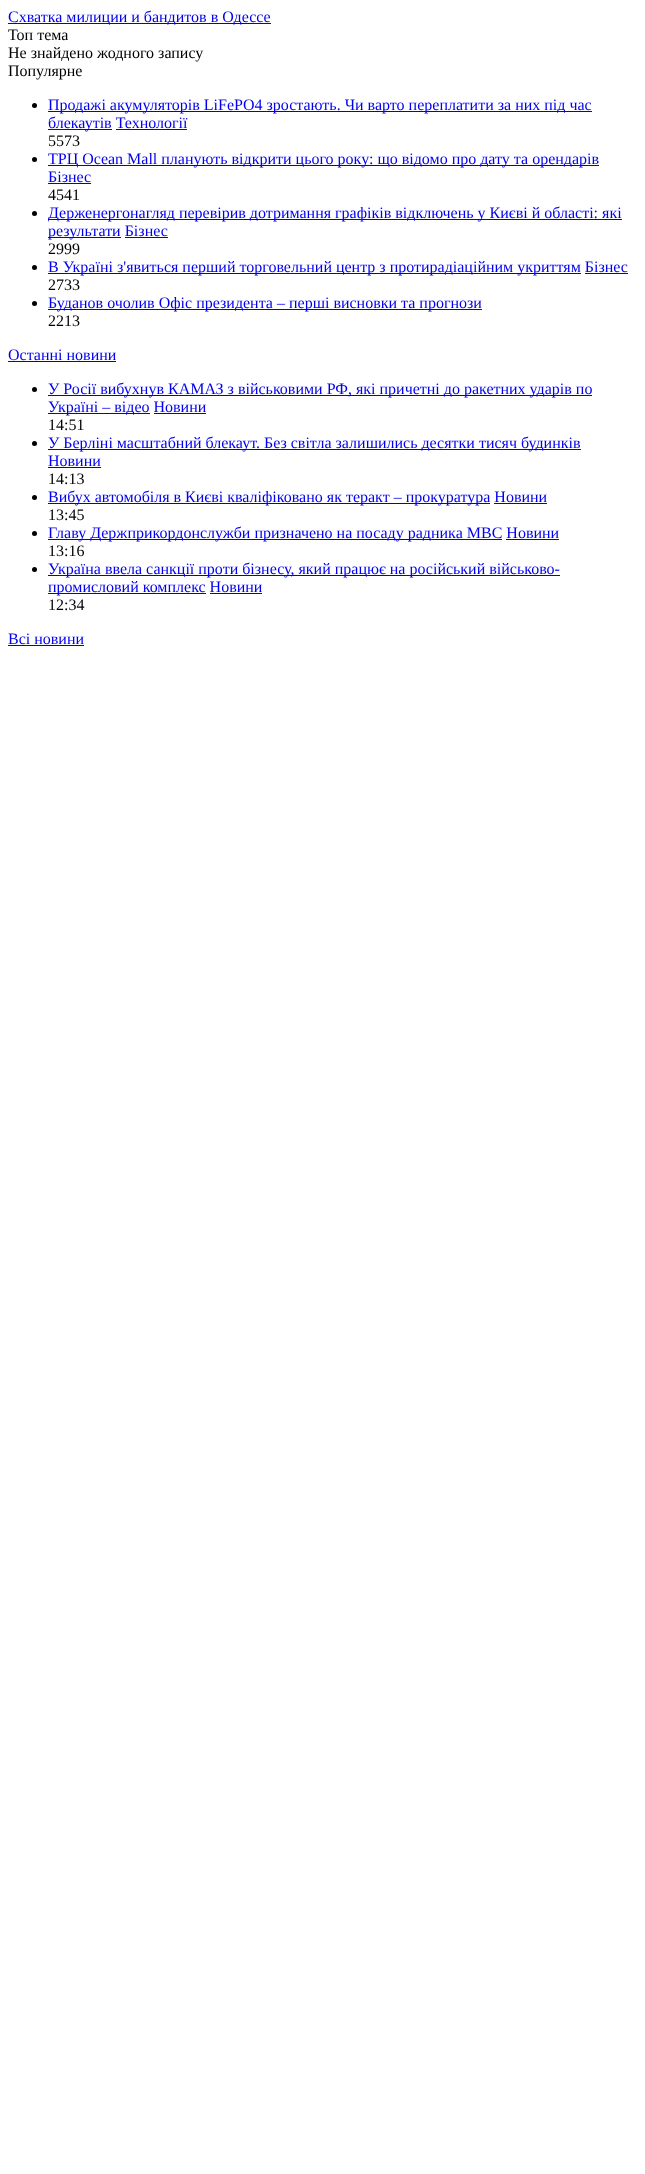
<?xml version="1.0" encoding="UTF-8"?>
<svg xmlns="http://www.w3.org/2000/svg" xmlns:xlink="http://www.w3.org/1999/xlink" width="645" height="2174">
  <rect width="100%" height="100%" fill="#ffffff" />
  <rect x="8" y="23" width="263" height="1" fill="#0000ee" />
  <circle cx="34.5" cy="105.5" r="2.5" fill="#000000" />
  <rect x="48" y="111" width="544" height="1" fill="#0000ee" />
  <rect x="48" y="129" width="64" height="1" fill="#0000ee" />
  <rect x="116" y="129" width="71" height="1" fill="#0000ee" />
  <circle cx="34.5" cy="159.5" r="2.5" fill="#000000" />
  <rect x="48" y="165" width="551" height="1" fill="#0000ee" />
  <rect x="48" y="183" width="43" height="1" fill="#0000ee" />
  <circle cx="34.5" cy="213.5" r="2.5" fill="#000000" />
  <rect x="48" y="219" width="574" height="1" fill="#0000ee" />
  <rect x="48" y="237" width="73" height="1" fill="#0000ee" />
  <rect x="125" y="237" width="43" height="1" fill="#0000ee" />
  <circle cx="34.5" cy="267.5" r="2.5" fill="#000000" />
  <rect x="48" y="273" width="533" height="1" fill="#0000ee" />
  <rect x="585" y="273" width="43" height="1" fill="#0000ee" />
  <circle cx="34.5" cy="303.5" r="2.5" fill="#000000" />
  <rect x="48" y="309" width="434" height="1" fill="#0000ee" />
  <rect x="8" y="361" width="108" height="1" fill="#0000ee" />
  <circle cx="34.5" cy="389.5" r="2.5" fill="#000000" />
  <rect x="48" y="395" width="544" height="1" fill="#0000ee" />
  <rect x="48" y="413" width="102" height="1" fill="#0000ee" />
  <rect x="154" y="413" width="52" height="1" fill="#0000ee" />
  <circle cx="34.5" cy="443.5" r="2.5" fill="#000000" />
  <rect x="48" y="449" width="533" height="1" fill="#0000ee" />
  <rect x="48" y="467" width="53" height="1" fill="#0000ee" />
  <circle cx="34.5" cy="497.5" r="2.5" fill="#000000" />
  <rect x="48" y="503" width="442" height="1" fill="#0000ee" />
  <rect x="494" y="503" width="53" height="1" fill="#0000ee" />
  <circle cx="34.5" cy="533.5" r="2.5" fill="#000000" />
  <rect x="48" y="539" width="454" height="1" fill="#0000ee" />
  <rect x="506" y="539" width="53" height="1" fill="#0000ee" />
  <circle cx="34.5" cy="569.5" r="2.5" fill="#000000" />
  <rect x="48" y="575" width="512" height="1" fill="#0000ee" />
  <rect x="48" y="593" width="158" height="1" fill="#0000ee" />
  <rect x="210" y="593" width="52" height="1" fill="#0000ee" />
  <rect x="8" y="645" width="76" height="1" fill="#0000ee" />
  <text x="8" y="22" style="font-family: Liberation Serif; font-size: 16px; fill: #0000ee">Схватка милиции и бандитов в Одессе</text>
  <text x="8" y="40" style="font-family: Liberation Serif; font-size: 16px; fill: #000000">Топ тема</text>
  <text x="8" y="58" style="font-family: Liberation Serif; font-size: 16px; fill: #000000">Не знайдено жодного запису</text>
  <text x="8" y="76" style="font-family: Liberation Serif; font-size: 16px; fill: #000000">Популярне</text>
  <text x="48" y="110" style="font-family: Liberation Serif; font-size: 16px; fill: #0000ee">Продажі акумуляторів LiFePO4 зростають. Чи варто переплатити за них під час</text>
  <text x="48" y="128" style="font-family: Liberation Serif; font-size: 16px; fill: #0000ee">блекаутів Технології</text>
  <text x="48" y="146" style="font-family: Liberation Serif; font-size: 16px; fill: #000000">5573</text>
  <text x="48" y="164" style="font-family: Liberation Serif; font-size: 16px; fill: #0000ee">ТРЦ Ocean Mall планують відкрити цього року: що відомо про дату та орендарів</text>
  <text x="48" y="182" style="font-family: Liberation Serif; font-size: 16px; fill: #0000ee">Бізнес</text>
  <text x="48" y="200" style="font-family: Liberation Serif; font-size: 16px; fill: #000000">4541</text>
  <text x="48" y="218" style="font-family: Liberation Serif; font-size: 16px; fill: #0000ee">Держенергонагляд перевірив дотримання графіків відключень у Києві й області: які</text>
  <text x="48" y="236" style="font-family: Liberation Serif; font-size: 16px; fill: #0000ee">результати Бізнес</text>
  <text x="48" y="254" style="font-family: Liberation Serif; font-size: 16px; fill: #000000">2999</text>
  <text x="48" y="272" style="font-family: Liberation Serif; font-size: 16px; fill: #0000ee">В Україні з'явиться перший торговельний центр з протирадіаційним укриттям Бізнес</text>
  <text x="48" y="290" style="font-family: Liberation Serif; font-size: 16px; fill: #000000">2733</text>
  <text x="48" y="308" style="font-family: Liberation Serif; font-size: 16px; fill: #0000ee">Буданов очолив Офіс президента – перші висновки та прогнози</text>
  <text x="48" y="326" style="font-family: Liberation Serif; font-size: 16px; fill: #000000">2213</text>
  <text x="8" y="360" style="font-family: Liberation Serif; font-size: 16px; fill: #0000ee">Останні новини</text>
  <text x="48" y="394" style="font-family: Liberation Serif; font-size: 16px; fill: #0000ee">У Росії вибухнув КАМАЗ з військовими РФ, які причетні до ракетних ударів по</text>
  <text x="48" y="412" style="font-family: Liberation Serif; font-size: 16px; fill: #0000ee">Україні – відео Новини</text>
  <text x="48" y="430" style="font-family: Liberation Serif; font-size: 16px; fill: #000000">14:51</text>
  <text x="48" y="448" style="font-family: Liberation Serif; font-size: 16px; fill: #0000ee">У Берліні масштабний блекаут. Без світла залишились десятки тисяч будинків</text>
  <text x="48" y="466" style="font-family: Liberation Serif; font-size: 16px; fill: #0000ee">Новини</text>
  <text x="48" y="484" style="font-family: Liberation Serif; font-size: 16px; fill: #000000">14:13</text>
  <text x="48" y="502" style="font-family: Liberation Serif; font-size: 16px; fill: #0000ee">Вибух автомобіля в Києві кваліфіковано як теракт – прокуратура Новини</text>
  <text x="48" y="520" style="font-family: Liberation Serif; font-size: 16px; fill: #000000">13:45</text>
  <text x="48" y="538" style="font-family: Liberation Serif; font-size: 16px; fill: #0000ee">Главу Держприкордонслужби призначено на посаду радника МВС Новини</text>
  <text x="48" y="556" style="font-family: Liberation Serif; font-size: 16px; fill: #000000">13:16</text>
  <text x="48" y="574" style="font-family: Liberation Serif; font-size: 16px; fill: #0000ee">Україна ввела санкції проти бізнесу, який працює на російський військово-</text>
  <text x="48" y="592" style="font-family: Liberation Serif; font-size: 16px; fill: #0000ee">промисловий комплекс Новини</text>
  <text x="48" y="610" style="font-family: Liberation Serif; font-size: 16px; fill: #000000">12:34</text>
  <text x="8" y="644" style="font-family: Liberation Serif; font-size: 16px; fill: #0000ee">Всі новини</text>
</svg>
